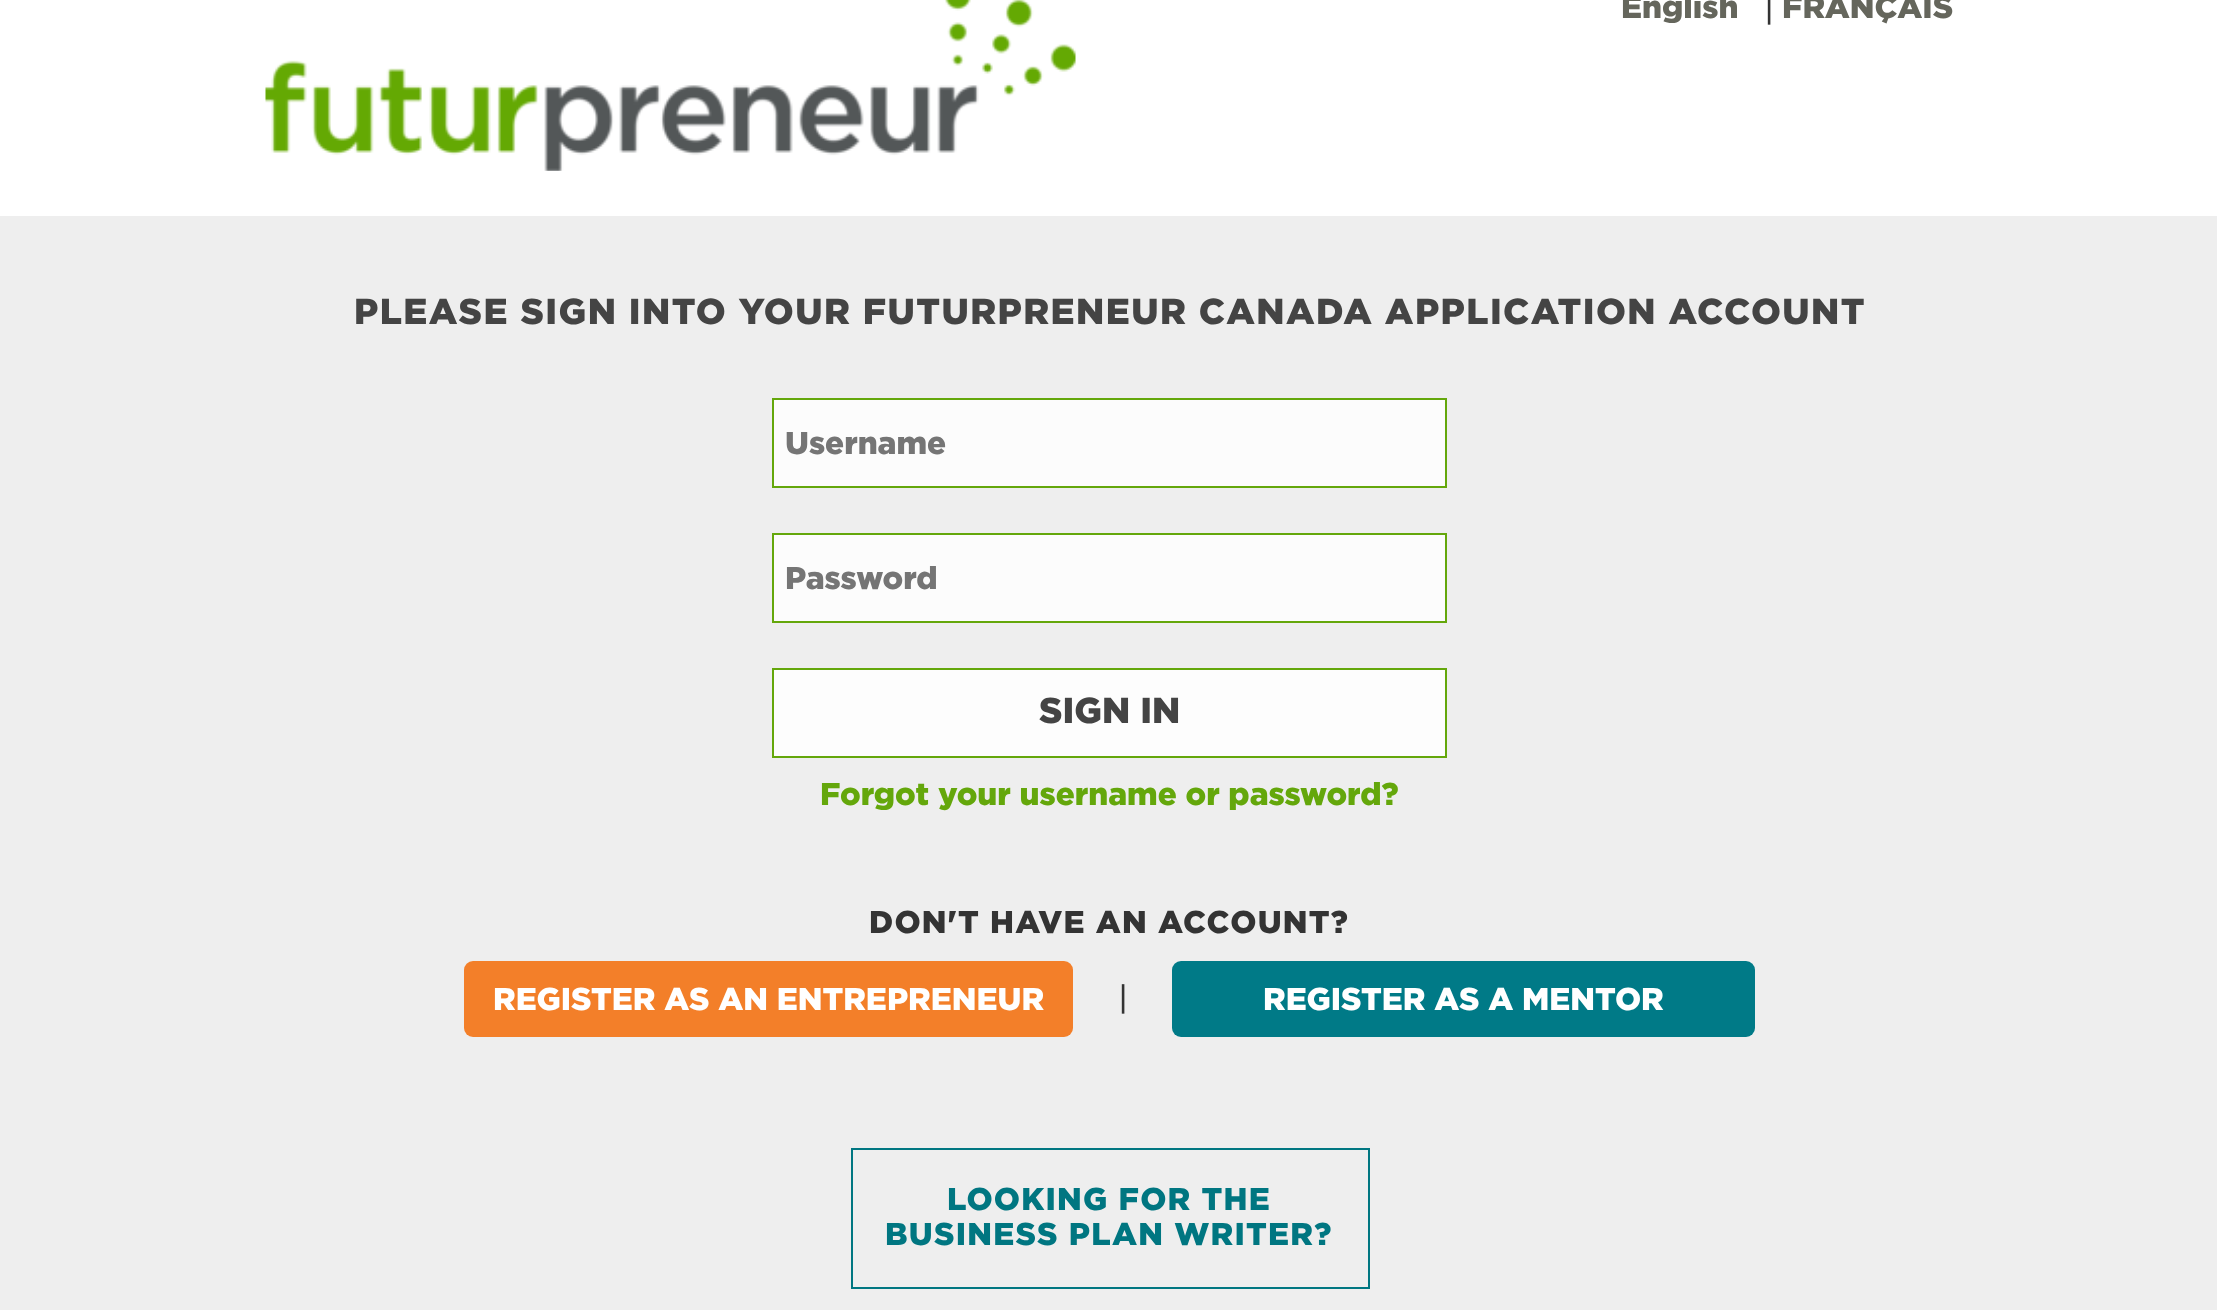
<?xml version="1.0" encoding="UTF-8"?>
<svg xmlns="http://www.w3.org/2000/svg" xmlns:xlink="http://www.w3.org/1999/xlink" width="2217" height="1310">
  <rect width="100%" height="100%" fill="#ffffff" />
  <image x="265" y="0" width="811" height="171" xlink:href="image1.png" />
  <rect y="216" width="2217" height="1094" fill="#eeeeee" />
  <rect x="773" y="399" width="673" height="88" fill="#fcfcfc" stroke="#64a70b" stroke-width="2" />
  <rect x="773" y="534" width="673" height="88" fill="#fcfcfc" stroke="#64a70b" stroke-width="2" />
  <rect x="773" y="669" width="673" height="88" fill="#fdfdfd" stroke="#64a70b" stroke-width="2" />
  <rect x="464" y="961" width="609" height="76" rx="9" fill="#f37f29" />
  <rect x="1172" y="961" width="583" height="76" rx="9" fill="#007a87" />
  <rect x="852" y="1149" width="517" height="139" fill="none" stroke="#007681" stroke-width="2" />
  <text x="1621" y="18" style="font-family: Gotham; font-size: 31.5px; font-weight: 900; fill: #65665c">English</text>
  <text x="1765" y="18" style="font-family: Liberation Sans; font-size: 31.5px; fill: #333333">|</text>
  <text x="1782" y="18" style="font-family: Gotham; font-size: 31.5px; font-weight: 900; fill: #65665c">FRANÇAIS</text>
  <text x="354" y="324" style="font-family: Gotham; font-size: 36px; font-weight: 900; letter-spacing: 1.45px; fill: #444444">PLEASE SIGN INTO YOUR FUTURPRENEUR CANADA APPLICATION ACCOUNT</text>
  <text x="785" y="454" style="font-family: Gotham; font-size: 31.5px; font-weight: 900; fill: #757575">Username</text>
  <text x="785" y="589" style="font-family: Gotham; font-size: 31.5px; font-weight: 900; fill: #757575">Password</text>
  <text x="1039" y="723" style="font-family: Gotham; font-size: 36px; font-weight: 900; fill: #444444">SIGN IN</text>
  <text x="820" y="805" style="font-family: Gotham; font-size: 31.5px; font-weight: 900; fill: #64a70b">Forgot your username or password?</text>
  <text x="869" y="933" style="font-family: Gotham; font-size: 31.5px; font-weight: 900; letter-spacing: 1.25px; fill: #333333">DON'T HAVE AN ACCOUNT?</text>
  <text x="493" y="1010" style="font-family: Gotham; font-size: 31.5px; font-weight: 900; fill: #ffffff">REGISTER AS AN ENTREPRENEUR</text>
  <text x="1119" y="1007" style="font-family: Liberation Sans; font-size: 31.5px; fill: #333333">|</text>
  <text x="1263" y="1010" style="font-family: Gotham; font-size: 31.5px; font-weight: 900; fill: #ffffff">REGISTER AS A MENTOR</text>
  <text x="947" y="1210" style="font-family: Gotham; font-size: 31.5px; font-weight: 900; letter-spacing: 1.25px; fill: #007681">LOOKING FOR THE</text>
  <text x="885" y="1245" style="font-family: Gotham; font-size: 31.5px; font-weight: 900; letter-spacing: 1.25px; fill: #007681">BUSINESS PLAN WRITER?</text>
</svg>
